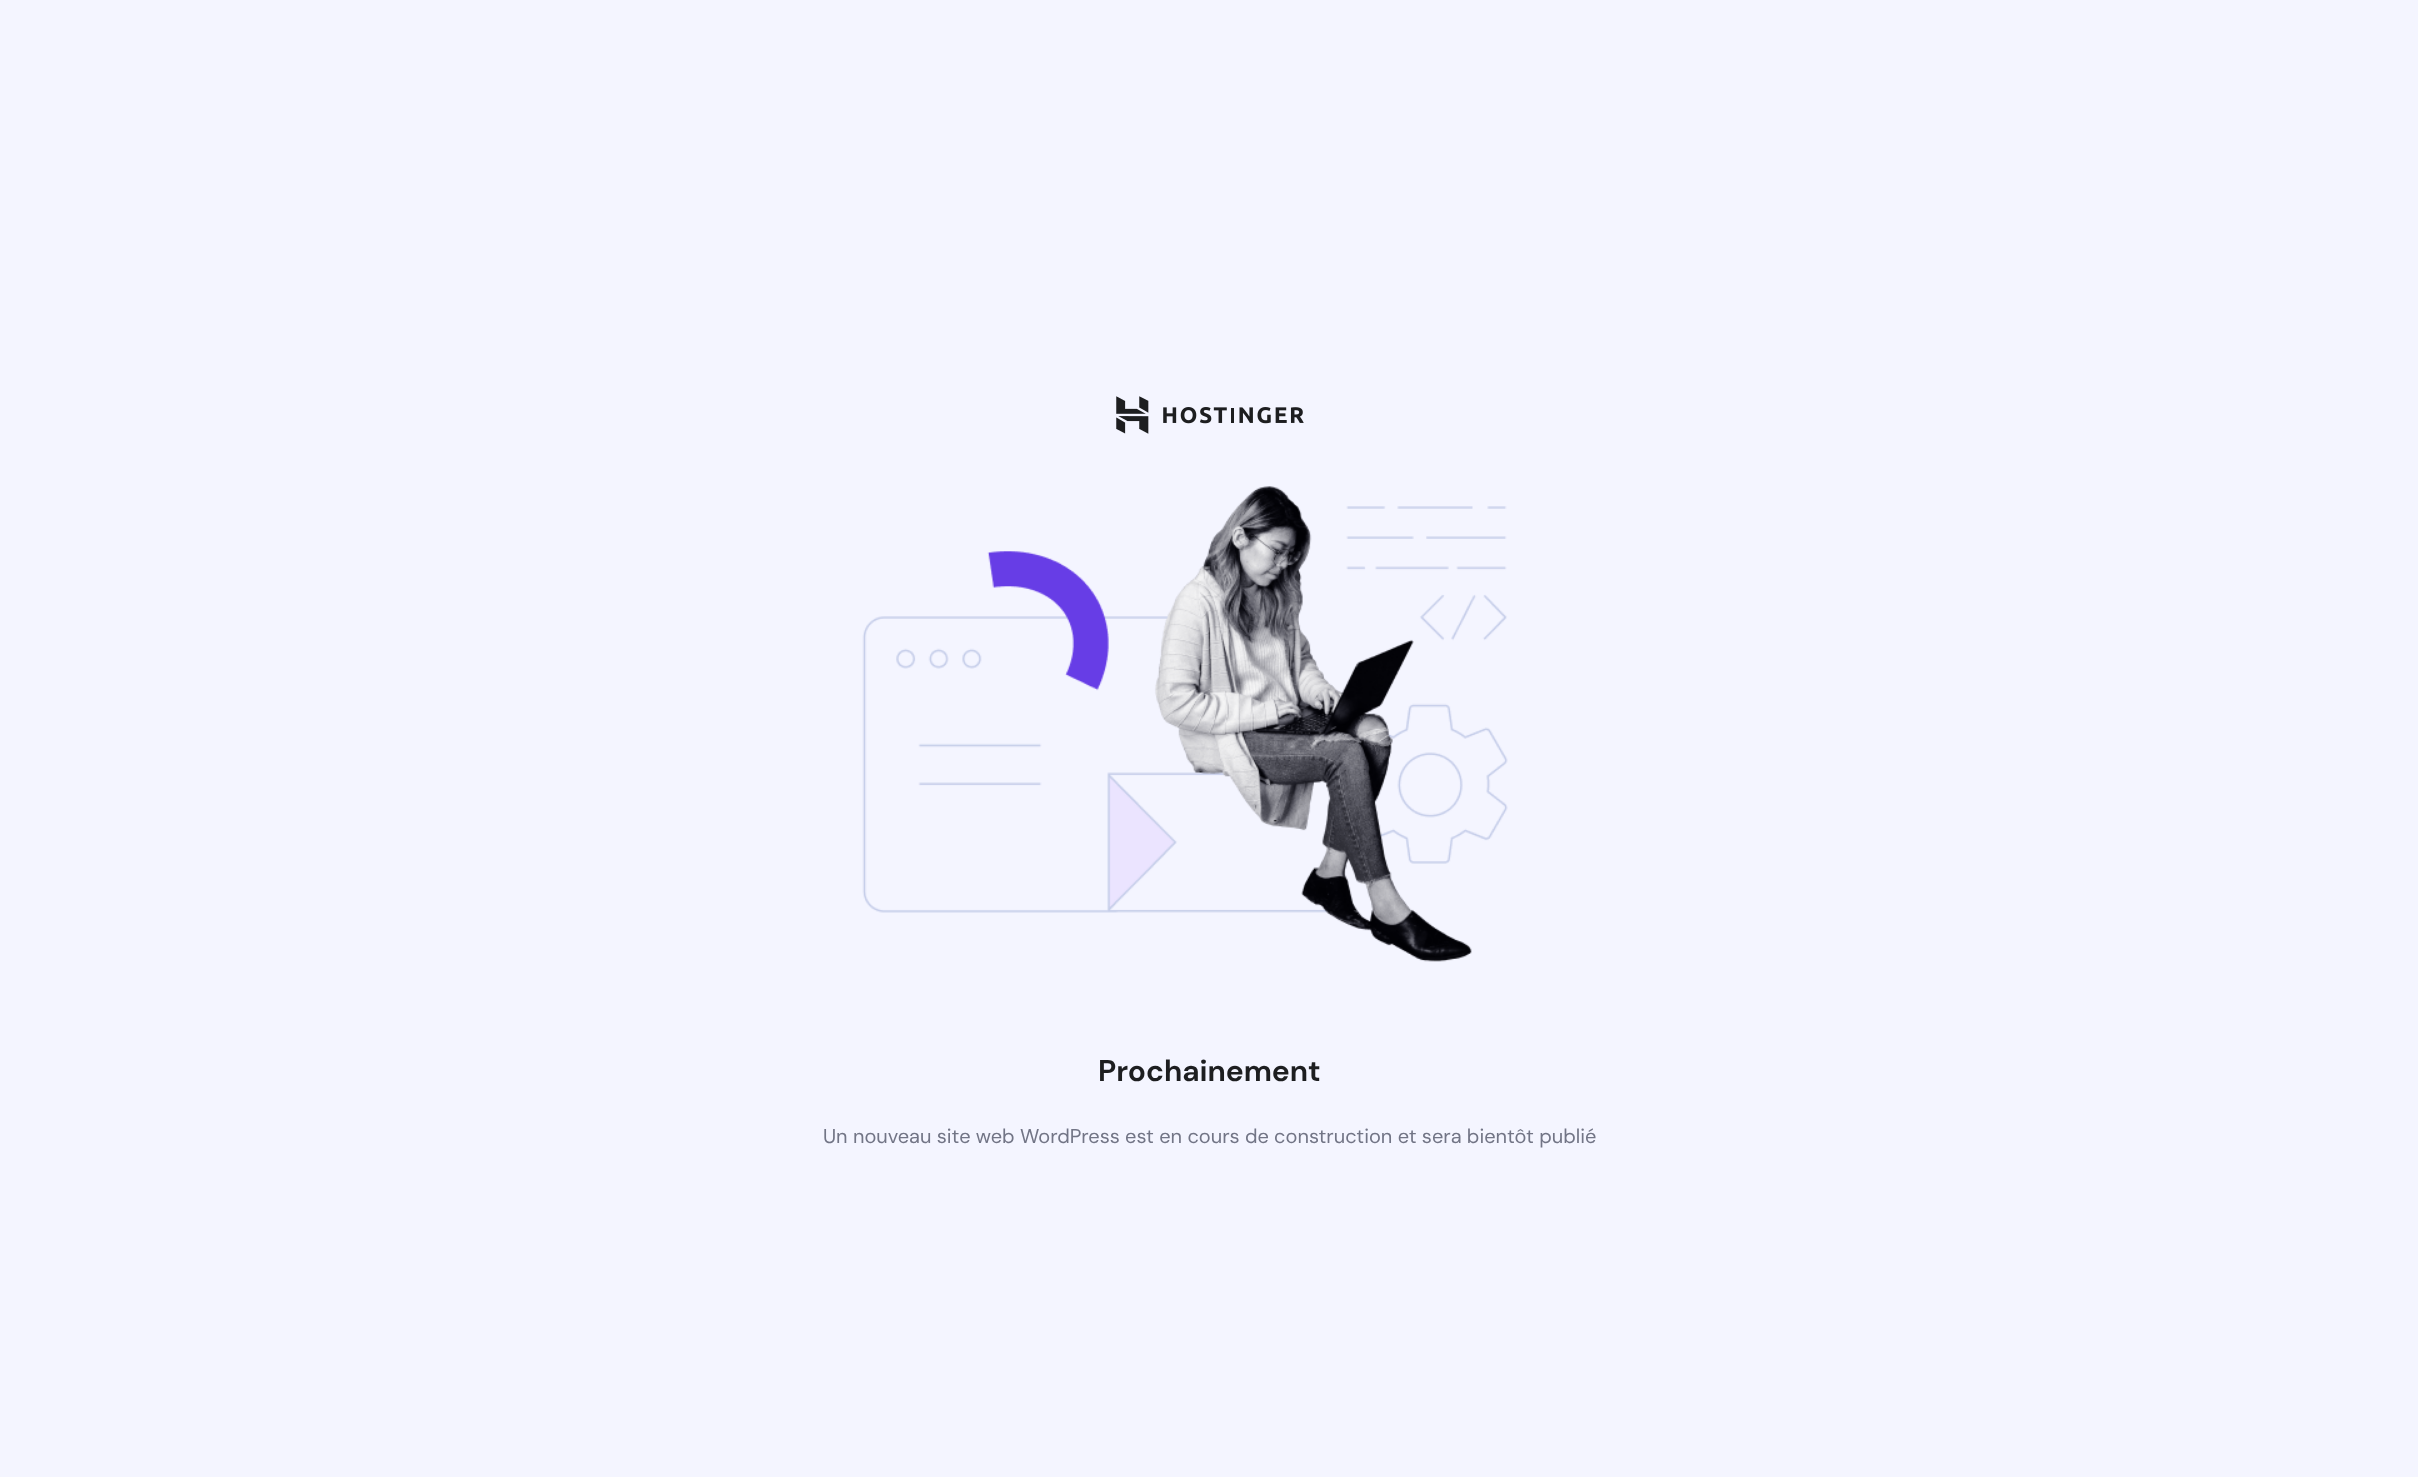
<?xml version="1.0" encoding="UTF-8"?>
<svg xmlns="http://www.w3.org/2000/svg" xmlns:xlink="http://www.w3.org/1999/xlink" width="2418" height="1477">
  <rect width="100%" height="100%" fill="#f4f5ff" />
  <image x="1116" y="396" width="188" height="38" xlink:href="image1.png" />
  <image x="862" y="486" width="646" height="476" xlink:href="image2.png" />
  <text x="1098" y="1081" style="font-family: DM Sans; font-size: 30px; font-weight: bold; fill: #1d1e20">Prochainement</text>
  <text x="823" y="1143" style="font-family: DM Sans; font-size: 20px; fill: #727586">Un nouveau site web WordPress est en cours de construction et sera bientôt publié</text>
</svg>
